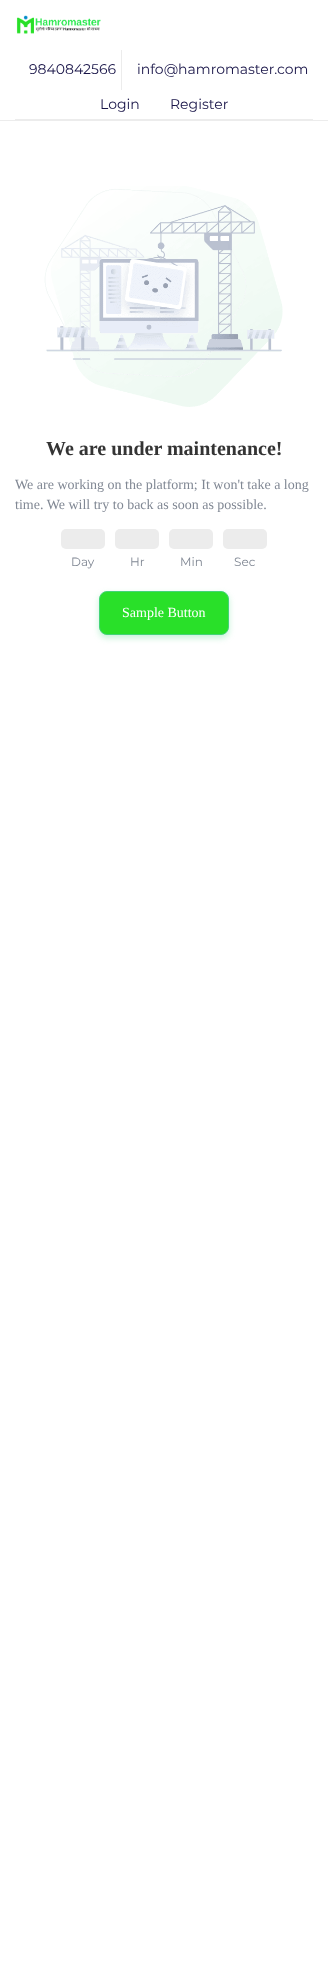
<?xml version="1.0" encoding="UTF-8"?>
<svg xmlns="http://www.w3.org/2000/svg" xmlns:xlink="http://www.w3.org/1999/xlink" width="328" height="1980">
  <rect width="100%" height="100%" fill="#ffffff" />
  <rect y="120" width="328" height="1" fill="#ececec" />
  <image x="16" y="15" width="85" height="19" xlink:href="image1.png" />
  <rect x="15" y="119" width="298" height="1" fill="#ececec" />
  <rect x="121" y="50" width="1" height="40" fill="#ececec" />
  <image x="44" y="186" width="239" height="221" xlink:href="image2.png" />
  <rect x="61" y="529" width="44" height="20" rx="5" fill="#ececec" />
  <rect x="115" y="529" width="44" height="20" rx="5" fill="#ececec" />
  <rect x="169" y="529" width="44" height="20" rx="5" fill="#ececec" />
  <rect x="223" y="529" width="44" height="20" rx="5" fill="#ececec" />
  <rect x="99" y="594" width="130" height="44" rx="8" fill="#40d57d" fill-opacity="0.3" filter="blur(3px)" />
  <rect x="99.5" y="591.5" width="129" height="43" rx="7.5" fill="#29e029" stroke="#43d477" />
  <text x="29" y="74" style="font-family: Montserrat; font-size: 14px; fill: #171347">9840842566</text>
  <text x="137" y="74" style="font-family: Montserrat; font-size: 14px; fill: #171347">info@hamromaster.com</text>
  <text x="100" y="109" style="font-family: Montserrat; font-size: 14px; fill: #171347">Login</text>
  <text x="170" y="109" style="font-family: Montserrat; font-size: 14px; fill: #171347">Register</text>
  <text x="46" y="455" style="font-family: Liberation Serif; font-size: 20px; font-weight: bold; fill: #343434">We are under maintenance!</text>
  <text x="15" y="489" style="font-family: Liberation Serif; font-size: 14px; fill: #818894">We are working on the platform; It won't take a long</text>
  <text x="15" y="509" style="font-family: Liberation Serif; font-size: 14px; fill: #818894">time. We will try to back as soon as possible.</text>
  <text x="71" y="566" style="font-family: Montserrat; font-size: 12px; fill: #818894">Day</text>
  <text x="130" y="566" style="font-family: Montserrat; font-size: 12px; fill: #818894">Hr</text>
  <text x="180" y="566" style="font-family: Montserrat; font-size: 12px; fill: #818894">Min</text>
  <text x="234" y="566" style="font-family: Montserrat; font-size: 12px; fill: #818894">Sec</text>
  <text x="122" y="617" style="font-family: Liberation Serif; font-size: 14px; fill: #ffffff">Sample Button</text>
</svg>
